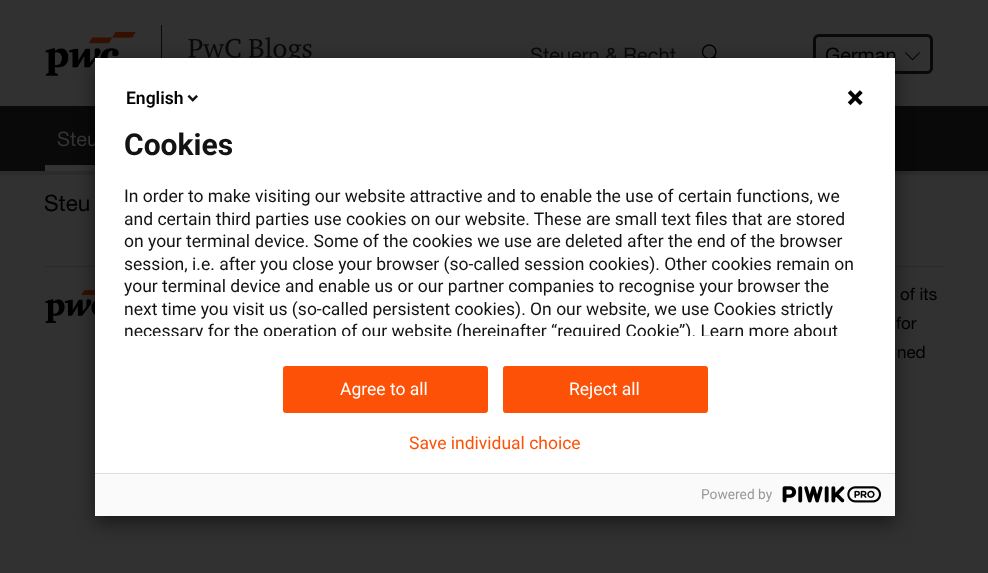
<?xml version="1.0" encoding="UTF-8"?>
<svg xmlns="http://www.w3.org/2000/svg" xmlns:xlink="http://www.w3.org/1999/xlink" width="988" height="573">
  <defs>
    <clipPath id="clip1"><rect x="125" y="88" width="740" height="248" /></clipPath>
  </defs>
  <rect width="100%" height="100%" fill="#313132" />
  <rect y="171" width="988" height="4" fill="#2c2c2d" />
  <image x="45" y="32" width="91" height="44" xlink:href="image1.png" />
  <rect x="161" y="25" width="1" height="33" fill="#090909" />
  <image x="188" y="37" width="124" height="21" xlink:href="image2.png" />
  <image x="701" y="44" width="16" height="14" xlink:href="image3.png" />
  <rect x="814.5" y="35.5" width="117" height="37" rx="4.5" fill="none" stroke="#090909" stroke-width="3" />
  <image x="905" y="52" width="15" height="9" xlink:href="image4.png" />
  <rect y="106" width="988" height="65" fill="#090909" />
  <rect x="45" y="165" width="50" height="6" fill="#333333" />
  <rect x="45" y="266" width="900" height="1" fill="#292a2b" />
  <image x="45" y="290" width="50" height="33" xlink:href="image8.png" />
  <rect x="95" y="64" width="800" height="459" fill="#000000" fill-opacity="0.5" filter="blur(9.5px)" />
  <rect x="95" y="474" width="800" height="42" fill="#fafafa" />
  <rect x="95" y="473" width="800" height="1" fill="#dddddd" />
  <image x="782" y="486" width="99" height="17" xlink:href="image7.png" />
  <text x="530" y="62" style="font-family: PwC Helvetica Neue; font-size: 20px; fill: #090909">Steuern &amp; Recht</text>
  <text x="825" y="62" style="font-family: PwC Helvetica Neue; font-size: 20px; fill: #000000">German</text>
  <text x="57" y="146" style="font-family: PwC Helvetica Neue; font-size: 20px; fill: #333333">Steu</text>
  <rect x="95" y="58" width="800" height="415" fill="#ffffff" />
  <text x="126" y="104" style="font-family: Roboto; font-size: 17.5px; font-weight: 600; fill: #000000">English</text>
  <image x="187" y="94" width="11" height="8" xlink:href="image5.png" />
  <image x="847" y="90" width="16" height="16" xlink:href="image6.png" />
  <text x="124" y="155" style="font-family: Roboto; font-size: 30px; font-weight: bold; fill: #131313">Cookies</text>
  <text x="124" y="202" style="font-family: Roboto; font-size: 17.5px; fill: #131313">In order to make visiting our website attractive and to enable the use of certain functions, we</text>
  <text x="124" y="225" style="font-family: Roboto; font-size: 17.5px; fill: #131313">and certain third parties use cookies on our website. These are small text files that are stored</text>
  <text x="124" y="247" style="font-family: Roboto; font-size: 17.5px; fill: #131313">on your terminal device. Some of the cookies we use are deleted after the end of the browser</text>
  <text x="124" y="270" style="font-family: Roboto; font-size: 17.5px; fill: #131313">session, i.e. after you close your browser (so-called session cookies). Other cookies remain on</text>
  <text x="124" y="292" style="font-family: Roboto; font-size: 17.5px; fill: #131313">your terminal device and enable us or our partner companies to recognise your browser the</text>
  <text x="124" y="315" style="font-family: Roboto; font-size: 17.5px; fill: #131313">next time you visit us (so-called persistent cookies). On our website, we use Cookies strictly</text>
  <g clip-path="url(#clip1)">
    <text x="124" y="337" style="font-family: Roboto; font-size: 17.5px; fill: #131313">necessary for the operation of our website (hereinafter “required Cookie”). Learn more about</text>
  </g>
  <rect x="283.5" y="366.5" width="204" height="46" rx="2" fill="#fd5108" stroke="#fd5108" />
  <text x="340" y="395" style="font-family: Roboto; font-size: 17.5px; fill: #ffffff">Agree to all</text>
  <rect x="503.5" y="366.5" width="204" height="46" rx="2" fill="#fd5108" stroke="#fd5108" />
  <text x="569" y="395" style="font-family: Roboto; font-size: 17.5px; fill: #ffffff">Reject all</text>
  <text x="409" y="449" style="font-family: Roboto; font-size: 17.5px; fill: #fd5108">Save individual choice</text>
  <text x="701" y="499" style="font-family: Roboto; font-size: 13.75px; fill: #999999">Powered by</text>
  <text x="44" y="211" style="font-family: PwC Helvetica Neue; font-size: 22.5px; fill: #000000">Steu</text>
  <text x="900" y="300" style="font-family: PwC Helvetica Neue; font-size: 17px; fill: #000000">of its</text>
  <text x="896" y="329" style="font-family: PwC Helvetica Neue; font-size: 17px; fill: #000000">for</text>
  <text x="897" y="358" style="font-family: PwC Helvetica Neue; font-size: 17px; fill: #000000">ned</text>
</svg>
